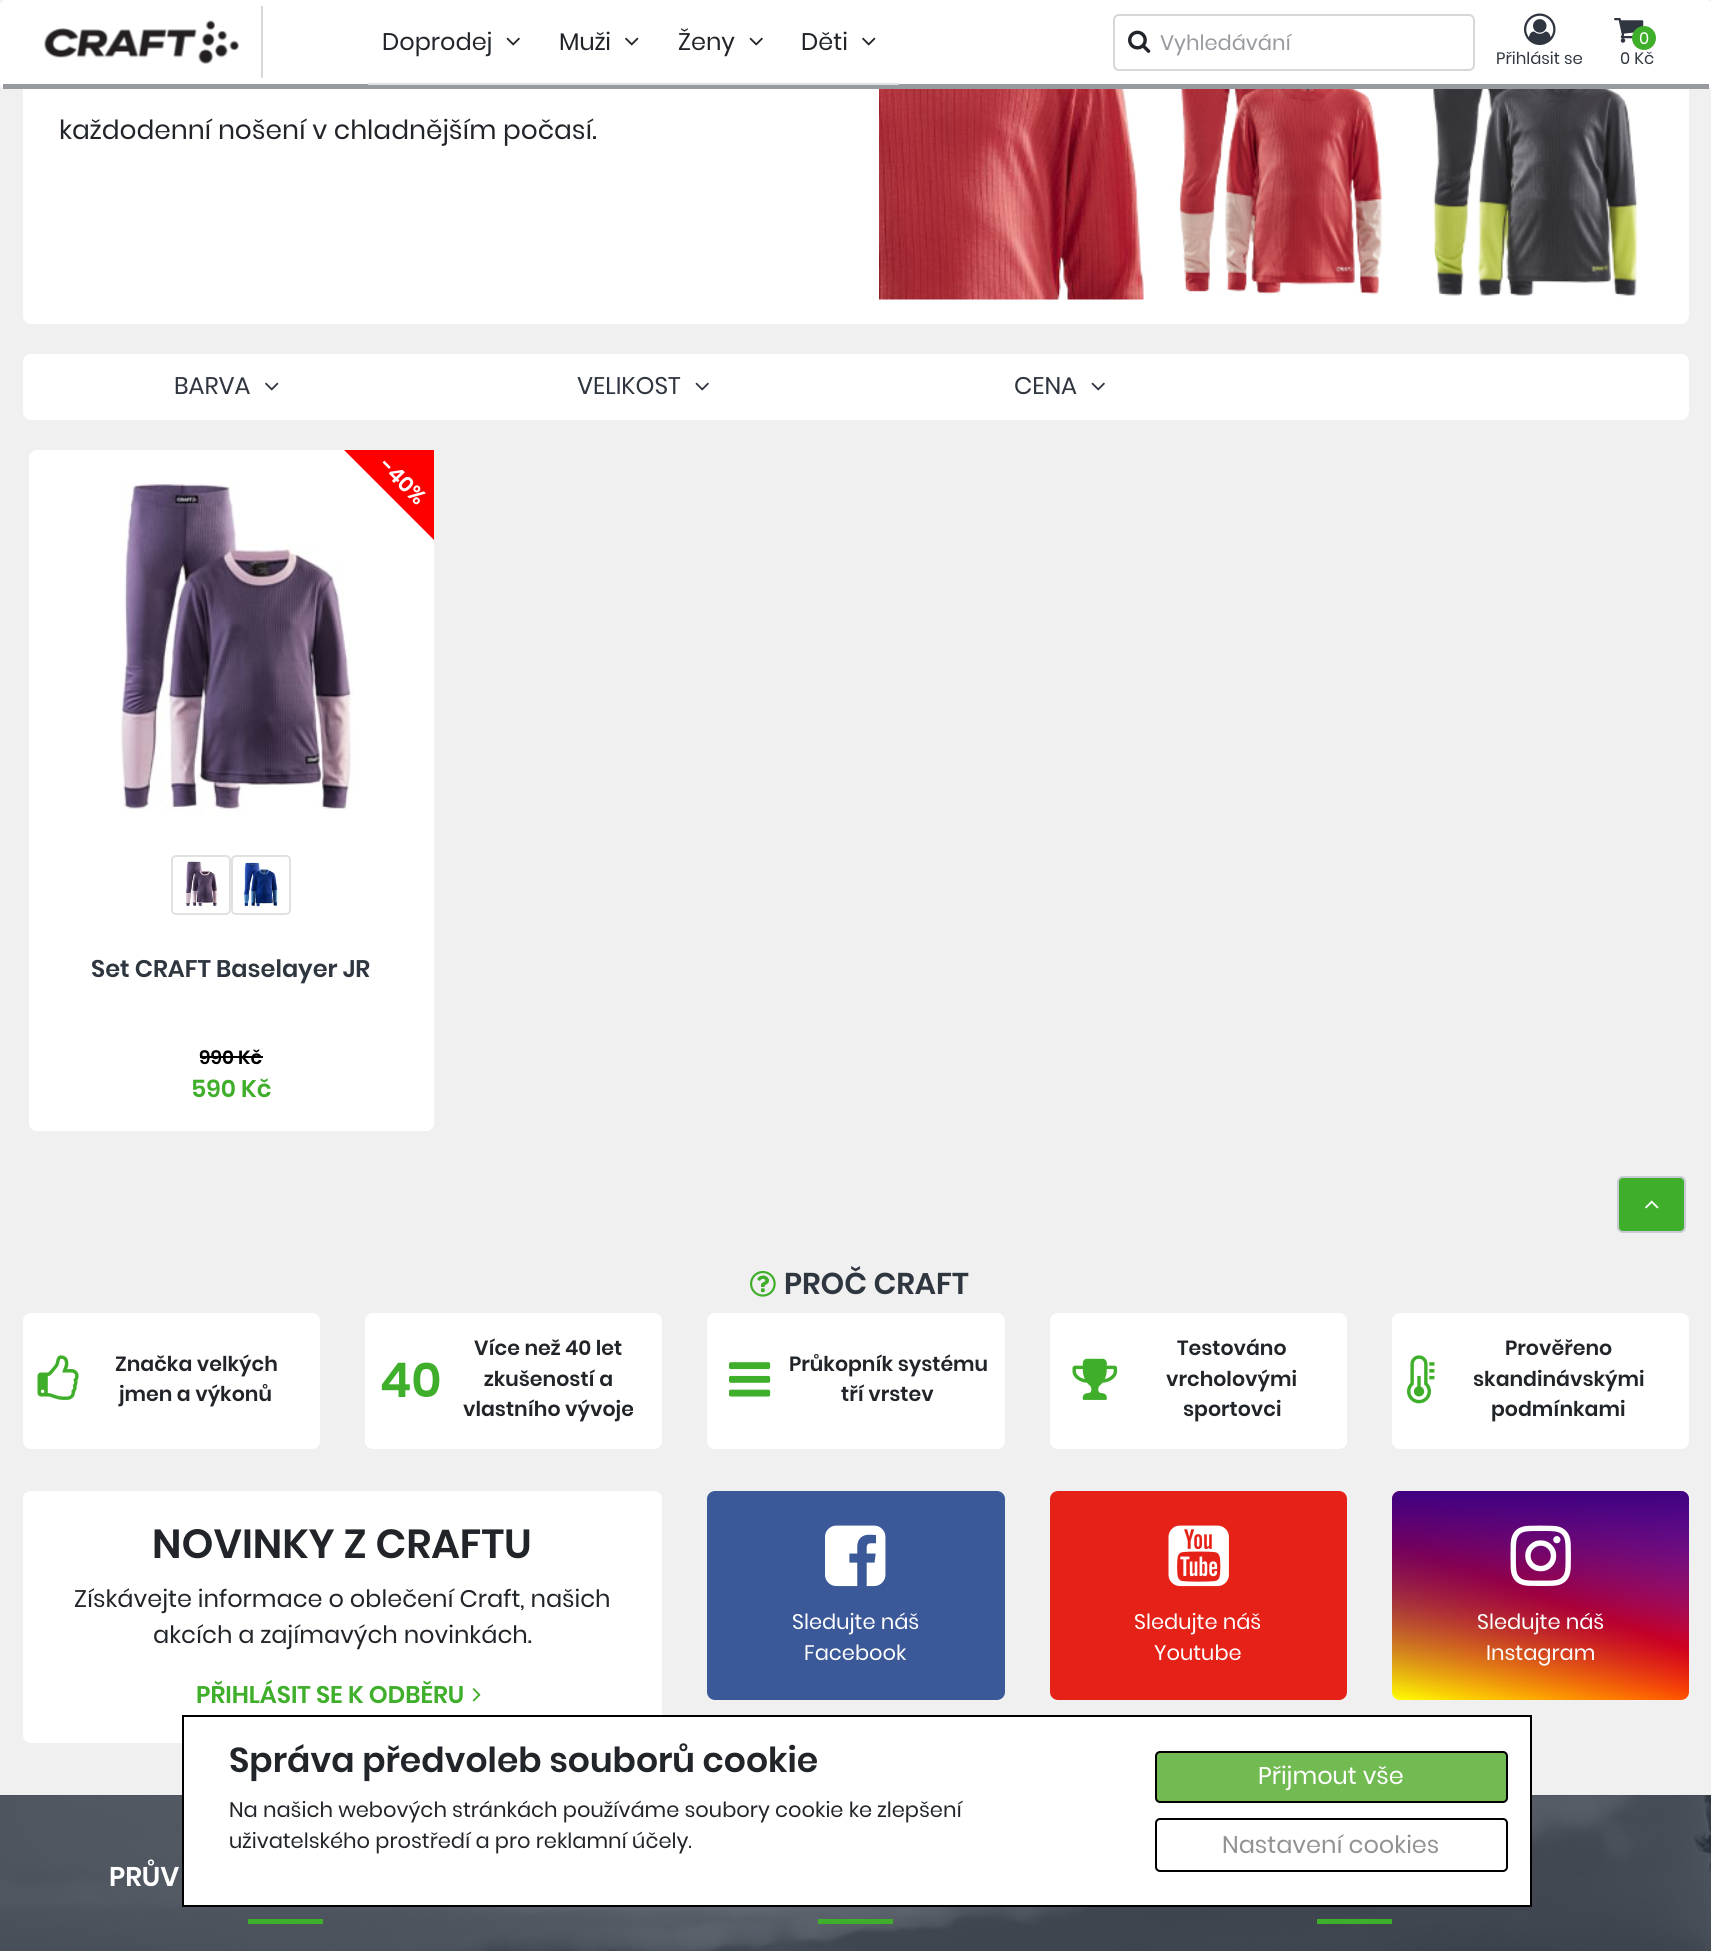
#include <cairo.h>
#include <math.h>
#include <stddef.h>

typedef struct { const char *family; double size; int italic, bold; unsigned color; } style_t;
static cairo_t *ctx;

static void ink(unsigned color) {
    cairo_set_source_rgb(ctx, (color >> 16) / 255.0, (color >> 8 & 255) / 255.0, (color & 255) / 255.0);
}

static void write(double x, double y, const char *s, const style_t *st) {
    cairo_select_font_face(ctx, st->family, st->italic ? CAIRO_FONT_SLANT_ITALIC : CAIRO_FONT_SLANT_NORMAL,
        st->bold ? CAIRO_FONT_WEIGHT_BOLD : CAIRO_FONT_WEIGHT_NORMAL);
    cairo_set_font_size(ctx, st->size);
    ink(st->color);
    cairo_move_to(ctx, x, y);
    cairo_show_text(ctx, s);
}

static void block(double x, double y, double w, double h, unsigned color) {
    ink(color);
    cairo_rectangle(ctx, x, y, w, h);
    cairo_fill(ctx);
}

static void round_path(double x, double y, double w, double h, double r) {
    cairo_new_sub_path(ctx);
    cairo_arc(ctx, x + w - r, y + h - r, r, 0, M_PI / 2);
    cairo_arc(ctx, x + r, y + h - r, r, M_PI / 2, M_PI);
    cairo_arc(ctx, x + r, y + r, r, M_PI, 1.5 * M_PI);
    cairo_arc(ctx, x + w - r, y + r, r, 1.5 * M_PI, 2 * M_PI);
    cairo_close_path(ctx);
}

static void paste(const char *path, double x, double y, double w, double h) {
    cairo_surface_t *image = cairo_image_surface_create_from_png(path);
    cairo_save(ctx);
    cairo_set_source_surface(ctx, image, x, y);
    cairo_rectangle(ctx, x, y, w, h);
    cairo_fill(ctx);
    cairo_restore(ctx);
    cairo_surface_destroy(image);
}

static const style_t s1 = {"Poppins", 24, 0, 0, 0x212529};
static const style_t s2 = {"Poppins", 21, 0, 0, 0x979a9f};
static const style_t s3 = {"Poppins", 16.5, 0, 0, 0x2f3640};
static const style_t s4 = {"Poppins", 16.5, 0, 0, 0xffffff};
static const style_t s5 = {"Poppins", 26.4, 0, 0, 0x212529};
static const style_t s6 = {"Poppins", 24, 0, 0, 0x2f3640};
static const style_t s7 = {"Poppins SemiBold", 21.5, 0, 0, 0xffffff};
static const style_t s8 = {"Poppins SemiBold", 24, 0, 0, 0x2f3640};
static const style_t s9 = {"Poppins SemiBold", 19, 0, 0, 0x000000};
static const style_t s10 = {"Poppins SemiBold", 24, 0, 0, 0x3fae2a};
static const style_t s11 = {"Poppins SemiBold", 30, 0, 0, 0x2f3640};
static const style_t s12 = {"Poppins SemiBold", 20.5, 0, 0, 0x212529};
static const style_t s13 = {"Poppins SemiBold", 48, 0, 0, 0x3fae2a};
static const style_t s14 = {"Poppins SemiBold", 40.5, 0, 0, 0x212529};
static const style_t s15 = {"Poppins", 21, 0, 0, 0xffffff};
static const style_t s16 = {"Poppins SemiBold", 27, 0, 0, 0xffffff};
static const style_t s17 = {"Poppins SemiBold", 34.5, 0, 0, 0x212529};
static const style_t s18 = {"Poppins", 21, 0, 0, 0x212529};
static const style_t s19 = {"Poppins", 24, 0, 0, 0xffffff};
static const style_t s20 = {"Poppins", 24, 0, 0, 0x929292};

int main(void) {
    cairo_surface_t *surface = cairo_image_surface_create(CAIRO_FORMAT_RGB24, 1711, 1951);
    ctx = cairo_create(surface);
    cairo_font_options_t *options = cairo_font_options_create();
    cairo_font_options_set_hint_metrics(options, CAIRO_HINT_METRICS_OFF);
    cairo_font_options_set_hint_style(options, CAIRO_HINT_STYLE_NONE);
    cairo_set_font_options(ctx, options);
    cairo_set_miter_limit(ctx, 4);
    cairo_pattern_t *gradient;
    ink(0xf0f0f0);
    cairo_paint(ctx);
    ink(0xffffff);
    round_path(23, -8, 1666, 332, 8);
    cairo_fill(ctx);
    round_path(0, 0, 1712, 89, 6);
    cairo_fill(ctx);
    block(3, 84, 1706, 5, 0x979a9f);
    paste("pic1.png", 44, 20, 195, 44);
    block(261, 6, 2, 72, 0xd7d7d7);
    block(368, 83, 531, 2, 0xdee2e6);
    write(382, 50, "Doprodej", &s1);
    paste("pic2.png", 506, 37, 14, 9);
    write(559, 50, "Muži", &s1);
    paste("pic3.png", 625, 37, 14, 9);
    write(678, 50, "Ženy", &s1);
    paste("pic2.png", 749, 37, 14, 9);
    write(801, 50, "Děti", &s1);
    paste("pic3.png", 862, 37, 14, 9);
    round_path(1114, 15, 360, 55, 5);
    ink(0xd7d7d7);
    cairo_stroke(ctx);
    paste("pic4.png", 1128, 30, 23, 23);
    write(1160, 50, "Vyhledávání", &s2);
    paste("pic5.png", 1524, 13, 32, 32);
    write(1496, 64, "Přihlásit se", &s3);
    paste("pic6.png", 1614, 18, 30, 25);
    ink(0x3fae2a);
    cairo_arc(ctx, 1644, 38, 12, 0, 2 * M_PI);
    cairo_fill(ctx);
    write(1639, 44, "0", &s4);
    write(1620, 64, "0 Kč", &s3);
    write(59, 139, "každodenní nošení v chladnějším počasí.", &s5);
    paste("pic7.png", 879, 89, 759, 211);
    ink(0xffffff);
    round_path(23, 354, 1666, 66, 8);
    cairo_fill(ctx);
    write(174, 394, "BARVA", &s6);
    paste("pic8.png", 265, 382, 14, 9);
    write(577, 394, "VELIKOST", &s6);
    paste("pic9.png", 695, 382, 14, 9);
    write(1014, 394, "CENA", &s6);
    paste("pic9.png", 1091, 382, 14, 9);
    ink(0xffffff);
    round_path(29, 450, 405, 681, 8);
    cairo_fill(ctx);
    paste("pic10.png", 120, 484, 234, 330);
    ink(0xff0000);
    cairo_new_path(ctx);
    cairo_move_to(ctx, 434, 450);
    cairo_line_to(ctx, 434, 540);
    cairo_line_to(ctx, 344, 450);
    cairo_close_path(ctx);
    cairo_fill(ctx);
    cairo_save(ctx);
    cairo_translate(ctx, 378, 467);
    cairo_rotate(ctx, 45 * M_PI / 180);
    write(0, 0, "-40%", &s7);
    cairo_restore(ctx);
    round_path(172, 856, 58, 58, 4);
    ink(0xe1e1e1);
    cairo_stroke(ctx);
    paste("pic11.png", 185, 859, 33, 49);
    round_path(232, 856, 58, 58, 4);
    cairo_stroke(ctx);
    paste("pic12.png", 243, 859, 37, 49);
    write(91, 977, "Set CRAFT Baselayer JR", &s8);
    write(199, 1064, "990 Kč", &s9);
    block(200, 1056, 63, 2, 0x000000);
    write(191, 1097, "590 Kč", &s10);
    round_path(1618, 1177, 67, 55, 5);
    cairo_fill_preserve(ctx);
    ink(0xc7ccd4);
    cairo_stroke(ctx);
    paste("pic13.png", 1645, 1200, 14, 9);
    paste("pic14.png", 750, 1270, 26, 27);
    write(784, 1294, "PROČ CRAFT", &s11);
    ink(0xffffff);
    round_path(23, 1313, 297, 136, 8);
    cairo_fill(ctx);
    paste("pic15.png", 37, 1355, 42, 45);
    write(115, 1371, "Značka velkých", &s12);
    write(119, 1401, "jmen a výkonů", &s12);
    ink(0xffffff);
    round_path(365, 1313, 297, 136, 8);
    cairo_fill(ctx);
    write(380, 1397, "40", &s13);
    write(474, 1355, "Více než 40 let", &s12);
    write(484, 1386, "zkušeností a", &s12);
    write(463, 1416, "vlastního vývoje", &s12);
    ink(0xffffff);
    round_path(707, 1313, 298, 136, 8);
    cairo_fill(ctx);
    paste("pic16.png", 729, 1362, 42, 35);
    write(789, 1371, "Průkopník systému", &s12);
    write(841, 1401, "tří vrstev", &s12);
    ink(0xffffff);
    round_path(1050, 1313, 297, 136, 8);
    cairo_fill(ctx);
    paste("pic17.png", 1072, 1358, 46, 42);
    write(1177, 1355, "Testováno", &s12);
    write(1166, 1386, "vrcholovými", &s12);
    write(1183, 1416, "sportovci", &s12);
    ink(0xffffff);
    round_path(1392, 1313, 297, 136, 8);
    cairo_fill(ctx);
    paste("pic18.png", 1407, 1355, 28, 49);
    write(1505, 1355, "Prověřeno", &s12);
    write(1473, 1386, "skandinávskými", &s12);
    write(1491, 1416, "podmínkami", &s12);
    ink(0xffffff);
    round_path(23, 1491, 639, 252, 8);
    cairo_fill(ctx);
    write(152, 1558, "NOVINKY Z CRAFTU", &s14);
    write(74, 1607, "Získávejte informace o oblečení Craft, našich", &s1);
    write(153, 1643, "akcích a zajímavých novinkách.", &s1);
    write(196, 1703, "PŘIHLÁSIT SE K ODBĚRU", &s10);
    paste("pic19.png", 472, 1688, 9, 14);
    ink(0x3b5998);
    round_path(707, 1491, 298, 209, 8);
    cairo_fill(ctx);
    paste("pic20.png", 825, 1525, 61, 62);
    write(792, 1629, "Sledujte náš", &s15);
    write(804, 1660, "Facebook", &s15);
    ink(0xe62117);
    round_path(1050, 1491, 297, 209, 8);
    cairo_fill(ctx);
    paste("pic21.png", 1168, 1525, 61, 62);
    write(1134, 1629, "Sledujte náš", &s15);
    write(1154, 1660, "Youtube", &s15);
    gradient = cairo_pattern_create_linear(1591, 1455, 1490, 1735);
    cairo_pattern_add_color_stop_rgba(gradient, 0, 0.816, 0.278, 0.82, 1);
    cairo_pattern_add_color_stop_rgba(gradient, 0.5, 1, 0, 0, 1);
    cairo_pattern_add_color_stop_rgba(gradient, 1, 1, 1, 0, 1);
    cairo_set_source(ctx, gradient);
    cairo_pattern_destroy(gradient);
    round_path(1392, 1491, 297, 209, 8);
    cairo_fill(ctx);
    gradient = cairo_pattern_create_linear(1541, 1491, 1541, 1700);
    cairo_pattern_add_color_stop_rgba(gradient, 0, 0.251, 0, 0.502, 1);
    cairo_pattern_add_color_stop_rgba(gradient, 1, 0.251, 0, 0.502, 0);
    cairo_set_source(ctx, gradient);
    cairo_pattern_destroy(gradient);
    round_path(1392, 1491, 297, 209, 8);
    cairo_fill(ctx);
    paste("pic22.png", 1510, 1525, 61, 61);
    write(1477, 1629, "Sledujte náš", &s15);
    write(1486, 1660, "Instagram", &s15);
    paste("pic23.png", 0, 1795, 1711, 156);
    write(109, 1886, "PRŮV", &s16);
    block(248, 1919, 75, 5, 0x3fae2a);
    block(818, 1919, 75, 5, 0x3fae2a);
    block(1317, 1919, 75, 5, 0x3fae2a);
    ink(0xffffff);
    cairo_rectangle(ctx, 183, 1716, 1348, 190);
    cairo_fill_preserve(ctx);
    ink(0x000000);
    cairo_stroke(ctx);
    write(229, 1772, "Správa předvoleb souborů cookie", &s17);
    write(229, 1817, "Na našich webových stránkách používáme soubory cookie ke zlepšení", &s18);
    write(229, 1848, "uživatelského prostředí a pro reklamní účely.", &s18);
    ink(0x72bb53);
    round_path(1156, 1752, 351, 50, 4);
    cairo_fill_preserve(ctx);
    ink(0x000000);
    cairo_stroke(ctx);
    write(1258, 1784, "Přijmout vše", &s19);
    round_path(1156, 1819, 351, 52, 4);
    ink(0x000000);
    cairo_stroke(ctx);
    write(1222, 1853, "Nastavení cookies", &s20);
    cairo_surface_write_to_png(surface, "screenshot.png");
    cairo_font_options_destroy(options);
    cairo_destroy(ctx);
    cairo_surface_destroy(surface);
    return 0;
}
